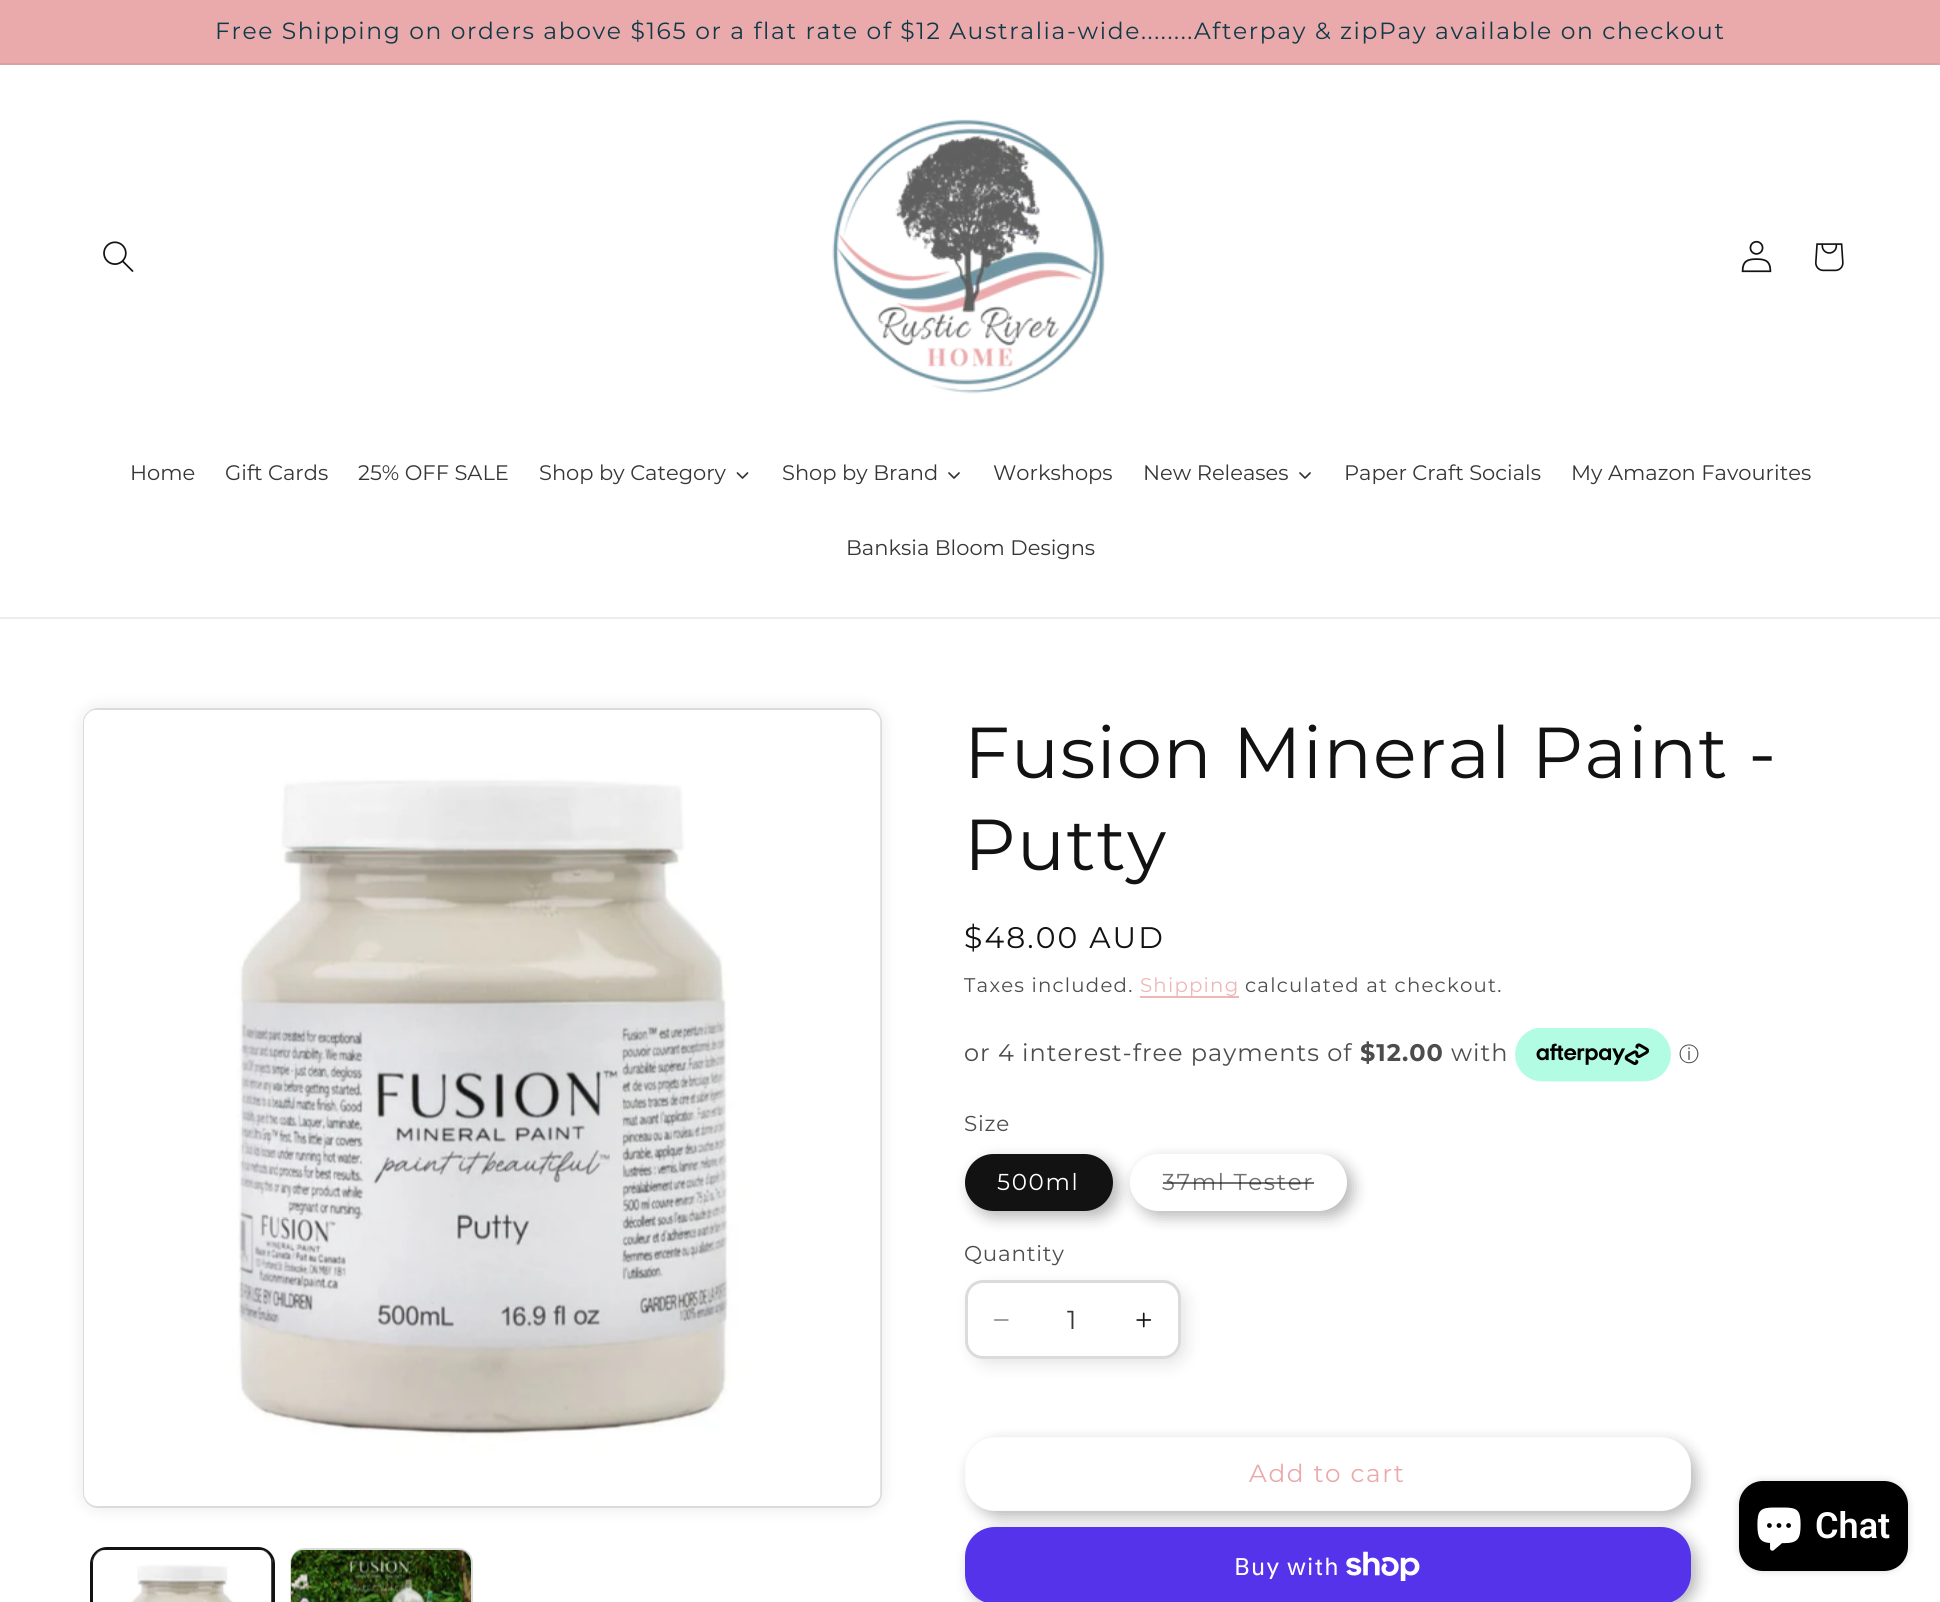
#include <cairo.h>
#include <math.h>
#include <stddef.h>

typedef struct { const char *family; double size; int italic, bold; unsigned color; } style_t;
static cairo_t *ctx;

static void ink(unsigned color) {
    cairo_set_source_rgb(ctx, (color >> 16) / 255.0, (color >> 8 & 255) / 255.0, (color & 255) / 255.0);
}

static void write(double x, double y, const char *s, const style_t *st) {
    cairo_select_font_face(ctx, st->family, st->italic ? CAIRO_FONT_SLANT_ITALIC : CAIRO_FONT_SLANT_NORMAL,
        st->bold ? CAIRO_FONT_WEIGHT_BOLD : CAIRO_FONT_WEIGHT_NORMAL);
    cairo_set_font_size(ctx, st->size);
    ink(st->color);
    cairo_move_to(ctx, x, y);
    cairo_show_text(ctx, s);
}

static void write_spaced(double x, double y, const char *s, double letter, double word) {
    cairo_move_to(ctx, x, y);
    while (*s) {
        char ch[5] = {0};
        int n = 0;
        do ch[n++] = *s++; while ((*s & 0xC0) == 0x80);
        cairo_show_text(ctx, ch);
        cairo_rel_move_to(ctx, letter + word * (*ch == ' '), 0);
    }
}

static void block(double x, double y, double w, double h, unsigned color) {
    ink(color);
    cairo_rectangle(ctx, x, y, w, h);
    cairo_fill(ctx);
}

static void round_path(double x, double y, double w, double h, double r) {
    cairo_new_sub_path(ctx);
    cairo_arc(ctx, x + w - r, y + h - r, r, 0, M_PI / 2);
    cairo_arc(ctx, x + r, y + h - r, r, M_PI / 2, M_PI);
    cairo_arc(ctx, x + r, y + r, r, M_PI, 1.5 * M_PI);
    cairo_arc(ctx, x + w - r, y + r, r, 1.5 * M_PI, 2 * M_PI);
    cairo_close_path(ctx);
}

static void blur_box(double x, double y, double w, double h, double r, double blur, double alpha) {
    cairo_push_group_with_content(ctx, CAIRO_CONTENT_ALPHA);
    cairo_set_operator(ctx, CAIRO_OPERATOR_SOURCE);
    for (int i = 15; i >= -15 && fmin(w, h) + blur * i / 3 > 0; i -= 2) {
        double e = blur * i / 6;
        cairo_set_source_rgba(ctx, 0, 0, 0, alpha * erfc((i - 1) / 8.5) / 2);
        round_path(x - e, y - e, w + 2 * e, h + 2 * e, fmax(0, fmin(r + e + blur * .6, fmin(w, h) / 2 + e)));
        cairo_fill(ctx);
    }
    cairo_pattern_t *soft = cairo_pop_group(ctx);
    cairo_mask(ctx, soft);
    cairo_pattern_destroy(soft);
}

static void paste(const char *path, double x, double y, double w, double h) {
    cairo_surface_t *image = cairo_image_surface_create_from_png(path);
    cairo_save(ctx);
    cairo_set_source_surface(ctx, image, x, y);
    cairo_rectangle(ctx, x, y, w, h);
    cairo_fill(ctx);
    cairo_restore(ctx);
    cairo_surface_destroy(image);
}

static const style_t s1 = {"Montserrat", 21, 0, 0, 0x363636};
static const style_t s2 = {"WenQuanYi Zen Hei Medium", 20, 0, 0, 0x4d4d4d};
static const style_t s3 = {"Montserrat", 26, 0, 0, 0x363636};
static const style_t s4 = {"Roboto SemiBold", 36, 0, 0, 0xffffff};

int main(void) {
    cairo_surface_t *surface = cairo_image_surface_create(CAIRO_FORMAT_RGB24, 1940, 1602);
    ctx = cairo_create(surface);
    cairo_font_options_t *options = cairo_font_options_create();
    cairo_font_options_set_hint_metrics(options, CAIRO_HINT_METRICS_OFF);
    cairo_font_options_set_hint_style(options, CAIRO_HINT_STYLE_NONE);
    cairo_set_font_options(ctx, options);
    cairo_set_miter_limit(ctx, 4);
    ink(0xffffff);
    cairo_paint(ctx);
    block(0, 0, 1940, 63, 0xeaaaac);
    block(0, 63, 1940, 2, 0xd9a1a4);
    cairo_select_font_face(ctx, "Montserrat", CAIRO_FONT_SLANT_NORMAL, CAIRO_FONT_WEIGHT_NORMAL);
    cairo_set_font_size(ctx, 23.4);
    ink(0x103948);
    write_spaced(215, 39, "Free Shipping on orders above $165 or a flat rate of $12 Australia-wide........Afterpay & zipPay available on checkout", 1.65, 0);
    block(0, 617, 1940, 2, 0xececec);
    paste("pic1.png", 103, 241, 31, 31);
    paste("pic2.png", 832, 119, 273, 275);
    paste("pic3.png", 1741, 240, 31, 33);
    paste("pic4.png", 1815, 243, 29, 29);
    write(130, 480, "Home", &s1);
    write(225, 480, "Gift Cards", &s1);
    write(358, 480, "25% OFF SALE", &s1);
    write(539, 480, "Shop by Category", &s1);
    paste("pic5.png", 736, 472, 13, 7);
    write(782, 480, "Shop by Brand", &s1);
    paste("pic6.png", 948, 472, 12, 7);
    write(993, 480, "Workshops", &s1);
    write(1143, 480, "New Releases", &s1);
    paste("pic6.png", 1299, 472, 12, 7);
    write(1344, 480, "Paper Craft Socials", &s1);
    write(1571, 480, "My Amazon Favourites", &s1);
    write(846, 555, "Banksia Bloom Designs", &s1);
    ink(0x121212);
    blur_box(83, 708, 799, 800, 15, 7.5, 0.1);
    ink(0xffffff);
    round_path(83, 708, 799, 800, 15);
    cairo_fill(ctx);
    round_path(84, 709, 797, 798, 14);
    cairo_set_source_rgba(ctx, 0.071, 0.071, 0.071, 0.15);
    cairo_stroke(ctx);
    paste("pic7.png", 84, 710, 797, 796);
    round_path(91, 1548, 183, 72, 16);
    ink(0x121212);
    cairo_stroke(ctx);
    round_path(93, 1549, 179, 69, 14);
    cairo_stroke(ctx);
    paste("pic8.png", 93, 1550, 179, 52);
    round_path(291, 1549, 181, 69, 14);
    ink(0xdbdbdb);
    cairo_stroke(ctx);
    paste("pic9.png", 291, 1550, 180, 52);
    cairo_set_font_size(ctx, 72);
    ink(0x121212);
    write_spaced(964, 778, "Fusion Mineral Paint -", 1.1, 0);
    write_spaced(964, 870, "Putty", 1.1, 0);
    cairo_set_font_size(ctx, 29.75);
    write_spaced(964, 948, "$48.00 AUD", 2.1, 0);
    cairo_set_font_size(ctx, 19.75);
    ink(0x4d4d4d);
    write_spaced(964, 992, "Taxes included.", 1.2, 0);
    ink(0xedb7b8);
    write_spaced(1140, 992, "Shipping", 1.2, 0);
    block(1140, 996, 99, 2, 0xedb7b8);
    ink(0x4d4d4d);
    write_spaced(1245, 992, "calculated at checkout.", 1.2, 0);
    cairo_set_font_size(ctx, 24);
    write_spaced(964, 1061, "or 4 interest-free payments of", 1, 0);
    cairo_select_font_face(ctx, "Montserrat", CAIRO_FONT_SLANT_NORMAL, CAIRO_FONT_WEIGHT_BOLD);
    write_spaced(1360, 1061, "$12.00", 1, 0);
    cairo_select_font_face(ctx, "Montserrat", CAIRO_FONT_SLANT_NORMAL, CAIRO_FONT_WEIGHT_NORMAL);
    write_spaced(1451, 1061, "with", 1, 0);
    paste("pic10.png", 1515, 1028, 156, 54);
    write(1679, 1061, "ⓘ", &s2);
    cairo_select_font_face(ctx, "Montserrat", CAIRO_FONT_SLANT_NORMAL, CAIRO_FONT_WEIGHT_NORMAL);
    cairo_set_font_size(ctx, 21.5);
    write_spaced(964, 1131, "Size", 0.75, 0);
    ink(0x121212);
    blur_box(971, 1160, 148, 57, 28.5, 7.5, 0.3);
    blur_box(1136, 1160, 217, 57, 28.5, 7.5, 0.3);
    ink(0x121212);
    round_path(965, 1154, 148, 57, 28.5);
    cairo_fill(ctx);
    cairo_set_font_size(ctx, 23);
    ink(0xffffff);
    write_spaced(997, 1190, "500ml", 1.65, 0);
    round_path(1130, 1154, 217, 57, 28.5);
    cairo_fill(ctx);
    ink(0x717171);
    write_spaced(1162, 1190, "37ml Tester", 1.65, 0);
    cairo_set_source_rgba(ctx, 0.071, 0.071, 0.071, 0.6);
    cairo_rectangle(ctx, 1163, 1182, 151, 2);
    cairo_fill(ctx);
    ink(0x121212);
    blur_box(971, 1286, 216, 79, 18, 7.5, 0.1);
    cairo_set_font_size(ctx, 21.5);
    ink(0x4d4d4d);
    write_spaced(964, 1261, "Quantity", 0.75, 0);
    ink(0xffffff);
    round_path(965, 1280, 216, 79, 18);
    cairo_fill(ctx);
    paste("pic11.png", 994, 1319, 15, 2);
    paste("pic12.png", 1136, 1312, 16, 16);
    round_path(966.5, 1281.5, 213, 76, 16.5);
    cairo_set_source_rgba(ctx, 0.071, 0.071, 0.071, 0.15);
    cairo_set_line_width(ctx, 3);
    cairo_stroke(ctx);
    write(1067, 1329, "1", &s3);
    ink(0x121212);
    blur_box(971, 1443, 726, 74, 30, 7.5, 0.3);
    ink(0xffffff);
    round_path(965, 1437, 726, 74, 30);
    cairo_fill(ctx);
    ink(0x121212);
    blur_box(971, 1533, 726, 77, 30, 7.5, 0.3);
    round_path(965.2, 1437.2, 725.6, 73.6, 29.8);
    cairo_set_source_rgba(ctx, 0.918, 0.667, 0.675, 0.15);
    cairo_set_line_width(ctx, 0.4);
    cairo_stroke(ctx);
    cairo_set_font_size(ctx, 24.75);
    ink(0xeaaaac);
    write_spaced(1249, 1482, "Add to cart", 1.65, 0);
    ink(0x5433eb);
    round_path(965, 1527, 726, 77, 30);
    cairo_fill(ctx);
    cairo_select_font_face(ctx, "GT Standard", CAIRO_FONT_SLANT_NORMAL, CAIRO_FONT_WEIGHT_NORMAL);
    cairo_set_font_size(ctx, 24);
    ink(0xffffff);
    write_spaced(1234, 1575, "Buy with", 1, 0);
    paste("pic13.png", 1346, 1551, 74, 30);
    ink(0x000000);
    blur_box(1739, 1481, 169, 90, 24, 4, 0.15);
    ink(0x000000);
    round_path(1739, 1481, 169, 90, 24);
    cairo_fill(ctx);
    paste("pic14.png", 1757, 1507, 44, 44);
    write(1815, 1538, "Chat", &s4);
    cairo_surface_write_to_png(surface, "screenshot.png");
    cairo_font_options_destroy(options);
    cairo_destroy(ctx);
    cairo_surface_destroy(surface);
    return 0;
}
